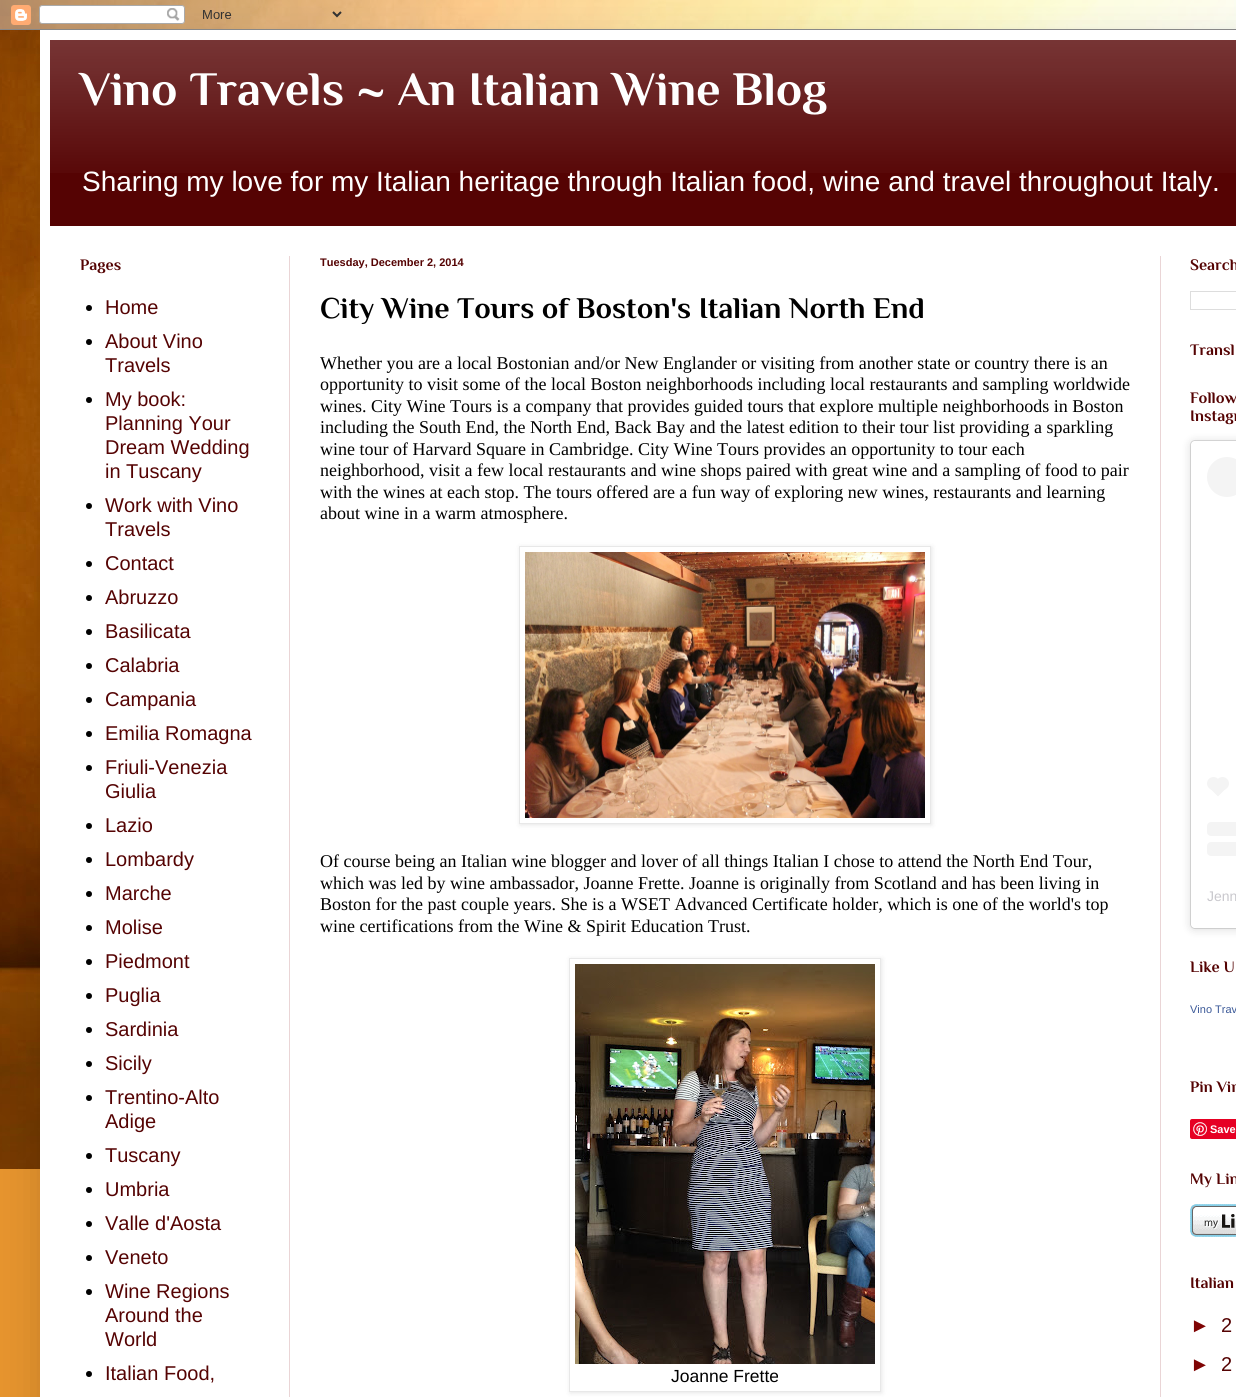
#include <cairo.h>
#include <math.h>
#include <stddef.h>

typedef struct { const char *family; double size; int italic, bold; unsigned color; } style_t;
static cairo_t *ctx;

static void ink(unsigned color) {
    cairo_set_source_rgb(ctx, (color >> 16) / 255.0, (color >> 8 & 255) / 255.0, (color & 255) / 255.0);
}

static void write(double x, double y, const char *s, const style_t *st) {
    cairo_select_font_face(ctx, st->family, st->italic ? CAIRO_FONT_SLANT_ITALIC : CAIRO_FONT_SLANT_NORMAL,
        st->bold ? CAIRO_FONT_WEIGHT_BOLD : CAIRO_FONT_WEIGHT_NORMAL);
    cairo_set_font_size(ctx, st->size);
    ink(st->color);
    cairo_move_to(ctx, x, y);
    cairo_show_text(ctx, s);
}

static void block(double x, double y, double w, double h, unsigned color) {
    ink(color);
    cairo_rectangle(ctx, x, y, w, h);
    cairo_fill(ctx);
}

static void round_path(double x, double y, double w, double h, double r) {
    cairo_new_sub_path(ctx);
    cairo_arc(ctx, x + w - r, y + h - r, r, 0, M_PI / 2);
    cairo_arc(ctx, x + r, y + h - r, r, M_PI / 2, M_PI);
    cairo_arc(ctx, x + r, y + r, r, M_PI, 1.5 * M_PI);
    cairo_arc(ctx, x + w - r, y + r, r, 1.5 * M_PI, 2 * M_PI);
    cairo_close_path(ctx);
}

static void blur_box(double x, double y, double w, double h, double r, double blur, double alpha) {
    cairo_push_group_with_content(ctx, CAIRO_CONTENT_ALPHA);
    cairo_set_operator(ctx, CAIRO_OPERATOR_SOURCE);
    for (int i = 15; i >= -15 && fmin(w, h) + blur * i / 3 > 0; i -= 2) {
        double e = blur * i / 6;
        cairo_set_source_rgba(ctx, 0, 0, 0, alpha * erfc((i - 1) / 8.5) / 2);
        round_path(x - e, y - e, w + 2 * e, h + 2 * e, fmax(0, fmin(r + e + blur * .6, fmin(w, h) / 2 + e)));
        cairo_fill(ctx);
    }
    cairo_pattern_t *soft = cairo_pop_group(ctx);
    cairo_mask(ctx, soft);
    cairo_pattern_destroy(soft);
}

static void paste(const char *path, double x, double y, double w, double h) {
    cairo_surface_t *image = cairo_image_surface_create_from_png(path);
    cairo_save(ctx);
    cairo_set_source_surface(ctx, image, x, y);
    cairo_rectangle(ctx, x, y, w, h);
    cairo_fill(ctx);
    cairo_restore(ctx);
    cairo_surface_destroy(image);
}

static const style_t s1 = {"Philosopher", 48, 0, 1, 0xffffff};
static const style_t s2 = {"Liberation Sans", 28, 0, 0, 0xffffff};
static const style_t s3 = {"Philosopher", 16, 0, 1, 0x550303};
static const style_t s4 = {"Liberation Sans", 20, 0, 0, 0x550303};
static const style_t s5 = {"Liberation Sans", 11, 0, 1, 0x550303};
static const style_t s6 = {"Philosopher", 30, 0, 1, 0x000000};
static const style_t s7 = {"Liberation Serif", 18, 0, 0, 0x000000};
static const style_t s8 = {"Liberation Sans", 17.5, 0, 0, 0x000000};
static const style_t s9 = {"Liberation Sans", 14, 0, 0, 0xc9c8cd};
static const style_t s10 = {"Liberation Sans", 11, 0, 0, 0x3b5998};
static const style_t s11 = {"Liberation Sans", 11, 0, 1, 0xffffff};
static const style_t s12 = {"Liberation Sans", 20, 0, 0, 0x7f0404};

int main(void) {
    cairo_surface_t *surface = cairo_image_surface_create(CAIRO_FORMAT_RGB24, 1236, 1397);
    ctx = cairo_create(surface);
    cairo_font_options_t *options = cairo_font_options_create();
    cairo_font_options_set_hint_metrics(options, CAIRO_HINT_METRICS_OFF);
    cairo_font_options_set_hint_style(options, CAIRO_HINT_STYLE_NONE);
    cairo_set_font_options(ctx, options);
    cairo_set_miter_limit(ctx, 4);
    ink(0xe6942e);
    cairo_paint(ctx);
    paste("pic1.png", 0, 0, 1236, 1169);
    ink(0x000000);
    blur_box(40, 30, 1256, 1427, 0, 20, 0.15);
    paste("pic2.png", 0, 0, 1236, 30);
    block(40, 30, 1196, 1367, 0xffffff);
    block(50, 40, 1186, 186, 0x550303);
    paste("pic3.png", 50, 40, 1186, 133);
    write(80, 105, "Vino Travels ~ An Italian Wine Blog", &s1);
    write(82, 191, "Sharing my love for my Italian heritage through Italian food, wine and travel throughout Italy.", &s2);
    block(289, 256, 1, 1141, 0xead5d6);
    block(1160, 256, 1, 1141, 0xead5d6);
    write(80, 270, "Pages", &s3);
    ink(0x000000);
    cairo_new_path(ctx);
    cairo_arc(ctx, 89, 308, 3, 0, 2 * M_PI);
    cairo_fill(ctx);
    write(105, 314, "Home", &s4);
    ink(0x000000);
    cairo_new_path(ctx);
    cairo_arc(ctx, 89, 342, 3, 0, 2 * M_PI);
    cairo_fill(ctx);
    write(105, 348, "About Vino", &s4);
    write(105, 372, "Travels", &s4);
    ink(0x000000);
    cairo_new_path(ctx);
    cairo_arc(ctx, 89, 400, 3, 0, 2 * M_PI);
    cairo_fill(ctx);
    write(105, 406, "My book:", &s4);
    write(105, 430, "Planning Your", &s4);
    write(105, 454, "Dream Wedding", &s4);
    write(105, 478, "in Tuscany", &s4);
    ink(0x000000);
    cairo_new_path(ctx);
    cairo_arc(ctx, 89, 506, 3, 0, 2 * M_PI);
    cairo_fill(ctx);
    write(105, 512, "Work with Vino", &s4);
    write(105, 536, "Travels", &s4);
    ink(0x000000);
    cairo_new_path(ctx);
    cairo_arc(ctx, 89, 564, 3, 0, 2 * M_PI);
    cairo_fill(ctx);
    write(105, 570, "Contact", &s4);
    ink(0x000000);
    cairo_new_path(ctx);
    cairo_arc(ctx, 89, 598, 3, 0, 2 * M_PI);
    cairo_fill(ctx);
    write(105, 604, "Abruzzo", &s4);
    ink(0x000000);
    cairo_new_path(ctx);
    cairo_arc(ctx, 89, 632, 3, 0, 2 * M_PI);
    cairo_fill(ctx);
    write(105, 638, "Basilicata", &s4);
    ink(0x000000);
    cairo_new_path(ctx);
    cairo_arc(ctx, 89, 666, 3, 0, 2 * M_PI);
    cairo_fill(ctx);
    write(105, 672, "Calabria", &s4);
    ink(0x000000);
    cairo_new_path(ctx);
    cairo_arc(ctx, 89, 700, 3, 0, 2 * M_PI);
    cairo_fill(ctx);
    write(105, 706, "Campania", &s4);
    ink(0x000000);
    cairo_new_path(ctx);
    cairo_arc(ctx, 89, 734, 3, 0, 2 * M_PI);
    cairo_fill(ctx);
    write(105, 740, "Emilia Romagna", &s4);
    ink(0x000000);
    cairo_new_path(ctx);
    cairo_arc(ctx, 89, 768, 3, 0, 2 * M_PI);
    cairo_fill(ctx);
    write(105, 774, "Friuli-Venezia", &s4);
    write(105, 798, "Giulia", &s4);
    ink(0x000000);
    cairo_new_path(ctx);
    cairo_arc(ctx, 89, 826, 3, 0, 2 * M_PI);
    cairo_fill(ctx);
    write(105, 832, "Lazio", &s4);
    ink(0x000000);
    cairo_new_path(ctx);
    cairo_arc(ctx, 89, 860, 3, 0, 2 * M_PI);
    cairo_fill(ctx);
    write(105, 866, "Lombardy", &s4);
    ink(0x000000);
    cairo_new_path(ctx);
    cairo_arc(ctx, 89, 894, 3, 0, 2 * M_PI);
    cairo_fill(ctx);
    write(105, 900, "Marche", &s4);
    ink(0x000000);
    cairo_new_path(ctx);
    cairo_arc(ctx, 89, 928, 3, 0, 2 * M_PI);
    cairo_fill(ctx);
    write(105, 934, "Molise", &s4);
    ink(0x000000);
    cairo_new_path(ctx);
    cairo_arc(ctx, 89, 962, 3, 0, 2 * M_PI);
    cairo_fill(ctx);
    write(105, 968, "Piedmont", &s4);
    ink(0x000000);
    cairo_new_path(ctx);
    cairo_arc(ctx, 89, 996, 3, 0, 2 * M_PI);
    cairo_fill(ctx);
    write(105, 1002, "Puglia", &s4);
    ink(0x000000);
    cairo_new_path(ctx);
    cairo_arc(ctx, 89, 1030, 3, 0, 2 * M_PI);
    cairo_fill(ctx);
    write(105, 1036, "Sardinia", &s4);
    ink(0x000000);
    cairo_new_path(ctx);
    cairo_arc(ctx, 89, 1064, 3, 0, 2 * M_PI);
    cairo_fill(ctx);
    write(105, 1070, "Sicily", &s4);
    ink(0x000000);
    cairo_new_path(ctx);
    cairo_arc(ctx, 89, 1098, 3, 0, 2 * M_PI);
    cairo_fill(ctx);
    write(105, 1104, "Trentino-Alto", &s4);
    write(105, 1128, "Adige", &s4);
    ink(0x000000);
    cairo_new_path(ctx);
    cairo_arc(ctx, 89, 1156, 3, 0, 2 * M_PI);
    cairo_fill(ctx);
    write(105, 1162, "Tuscany", &s4);
    ink(0x000000);
    cairo_new_path(ctx);
    cairo_arc(ctx, 89, 1190, 3, 0, 2 * M_PI);
    cairo_fill(ctx);
    write(105, 1196, "Umbria", &s4);
    ink(0x000000);
    cairo_new_path(ctx);
    cairo_arc(ctx, 89, 1224, 3, 0, 2 * M_PI);
    cairo_fill(ctx);
    write(105, 1230, "Valle d'Aosta", &s4);
    ink(0x000000);
    cairo_new_path(ctx);
    cairo_arc(ctx, 89, 1258, 3, 0, 2 * M_PI);
    cairo_fill(ctx);
    write(105, 1264, "Veneto", &s4);
    ink(0x000000);
    cairo_new_path(ctx);
    cairo_arc(ctx, 89, 1292, 3, 0, 2 * M_PI);
    cairo_fill(ctx);
    write(105, 1298, "Wine Regions", &s4);
    write(105, 1322, "Around the", &s4);
    write(105, 1346, "World", &s4);
    ink(0x000000);
    cairo_new_path(ctx);
    cairo_arc(ctx, 89, 1374, 3, 0, 2 * M_PI);
    cairo_fill(ctx);
    write(105, 1380, "Italian Food,", &s4);
    write(320, 266, "Tuesday, December 2, 2014", &s5);
    write(320, 318, "City Wine Tours of Boston's Italian North End", &s6);
    write(320, 369, "Whether you are a local Bostonian and/or New Englander or visiting from another state or country there is an", &s7);
    write(320, 390, "opportunity to visit some of the local Boston neighborhoods including local restaurants and sampling worldwide", &s7);
    write(320, 412, "wines. City Wine Tours is a company that provides guided tours that explore multiple neighborhoods in Boston", &s7);
    write(320, 433, "including the South End, the North End, Back Bay and the latest edition to their tour list providing a sparkling", &s7);
    write(320, 455, "wine tour of Harvard Square in Cambridge. City Wine Tours provides an opportunity to tour each", &s7);
    write(320, 476, "neighborhood, visit a few local restaurants and wine shops paired with great wine and a sampling of food to pair", &s7);
    write(320, 498, "with the wines at each stop. The tours offered are a fun way of exploring new wines, restaurants and learning", &s7);
    write(320, 519, "about wine in a warm atmosphere.", &s7);
    cairo_save(ctx);
    cairo_set_fill_rule(ctx, CAIRO_FILL_RULE_EVEN_ODD);
    cairo_new_path(ctx);
    cairo_move_to(ctx, 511, 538);
    cairo_line_to(ctx, 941, 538);
    cairo_line_to(ctx, 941, 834);
    cairo_line_to(ctx, 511, 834);
    cairo_close_path(ctx);
    cairo_move_to(ctx, 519, 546);
    cairo_line_to(ctx, 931, 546);
    cairo_line_to(ctx, 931, 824);
    cairo_line_to(ctx, 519, 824);
    cairo_close_path(ctx);
    cairo_clip(ctx);
    ink(0x000000);
    blur_box(520, 547, 412, 278, 0, 2.5, 0.1);
    cairo_restore(ctx);
    cairo_rectangle(ctx, 519.5, 546.5, 411, 277);
    ink(0xe8e8e8);
    cairo_set_line_width(ctx, 1);
    cairo_stroke(ctx);
    paste("pic4.png", 525, 552, 400, 266);
    write(320, 867, "Of course being an Italian wine blogger and lover of all things Italian I chose to attend the North End Tour,", &s7);
    write(320, 889, "which was led by wine ambassador, Joanne Frette. Joanne is originally from Scotland and has been living in", &s7);
    write(320, 910, "Boston for the past couple years. She is a WSET Advanced Certificate holder, which is one of the world's top", &s7);
    write(320, 932, "wine certifications from the Wine & Spirit Education Trust.", &s7);
    cairo_save(ctx);
    cairo_set_fill_rule(ctx, CAIRO_FILL_RULE_EVEN_ODD);
    cairo_new_path(ctx);
    cairo_move_to(ctx, 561, 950);
    cairo_line_to(ctx, 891, 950);
    cairo_line_to(ctx, 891, 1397);
    cairo_line_to(ctx, 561, 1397);
    cairo_close_path(ctx);
    cairo_move_to(ctx, 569, 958);
    cairo_line_to(ctx, 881, 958);
    cairo_line_to(ctx, 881, 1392);
    cairo_line_to(ctx, 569, 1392);
    cairo_close_path(ctx);
    cairo_clip(ctx);
    ink(0x000000);
    blur_box(570, 959, 312, 434, 0, 2.5, 0.1);
    cairo_restore(ctx);
    cairo_rectangle(ctx, 569.5, 958.5, 311, 433);
    ink(0xe8e8e8);
    cairo_stroke(ctx);
    paste("pic5.png", 575, 964, 300, 400);
    write(671, 1382, "Joanne Frette", &s8);
    write(1190, 270, "Search", &s3);
    cairo_rectangle(ctx, 1190.5, 291.5, 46, 18);
    ink(0xdddddd);
    cairo_stroke(ctx);
    write(1190, 355, "Transl", &s3);
    write(1190, 403, "Follow", &s3);
    write(1190, 421, "Instagr", &s3);
    ink(0x000000);
    blur_box(1191, 442, 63, 487, 3, 5, 0.15);
    blur_box(1191, 441, 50, 487, 3, 0.5, 0.5);
    ink(0xffffff);
    round_path(1191, 441, 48, 487, 3);
    cairo_fill(ctx);
    ink(0xf4f4f4);
    cairo_arc(ctx, 1227, 477, 20, 0, 2 * M_PI);
    cairo_fill(ctx);
    cairo_arc(ctx, 1213.5, 783.5, 6.5, 0, 2 * M_PI);
    cairo_fill(ctx);
    cairo_new_path(ctx);
    cairo_move_to(ctx, 1209, 787.5);
    cairo_line_to(ctx, 1218, 779);
    cairo_line_to(ctx, 1227, 787.5);
    cairo_line_to(ctx, 1218, 796.5);
    cairo_close_path(ctx);
    cairo_fill(ctx);
    cairo_arc(ctx, 1222.5, 783.5, 6.5, 0, 2 * M_PI);
    cairo_fill(ctx);
    round_path(1207, 822, 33, 14, 4);
    cairo_fill(ctx);
    round_path(1207, 842, 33, 14, 4);
    cairo_fill(ctx);
    write(1207, 901, "Jenn", &s9);
    write(1190, 972, "Like U", &s3);
    write(1190, 1013, "Vino Trav", &s10);
    write(1190, 1092, "Pin Vin", &s3);
    ink(0xe60023);
    round_path(1190, 1119, 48, 20, 2);
    cairo_fill(ctx);
    paste("pic6.png", 1193, 1122, 14, 14);
    write(1210, 1133, "Save", &s11);
    write(1190, 1184, "My Lin", &s3);
    paste("pic7.png", 1190, 1204, 46, 33);
    write(1190, 1288, "Italian", &s3);
    write(1190, 1332, "►", &s12);
    write(1221, 1332, "2", &s4);
    write(1190, 1371, "►", &s12);
    write(1221, 1371, "2", &s4);
    cairo_surface_write_to_png(surface, "screenshot.png");
    cairo_font_options_destroy(options);
    cairo_destroy(ctx);
    cairo_surface_destroy(surface);
    return 0;
}
